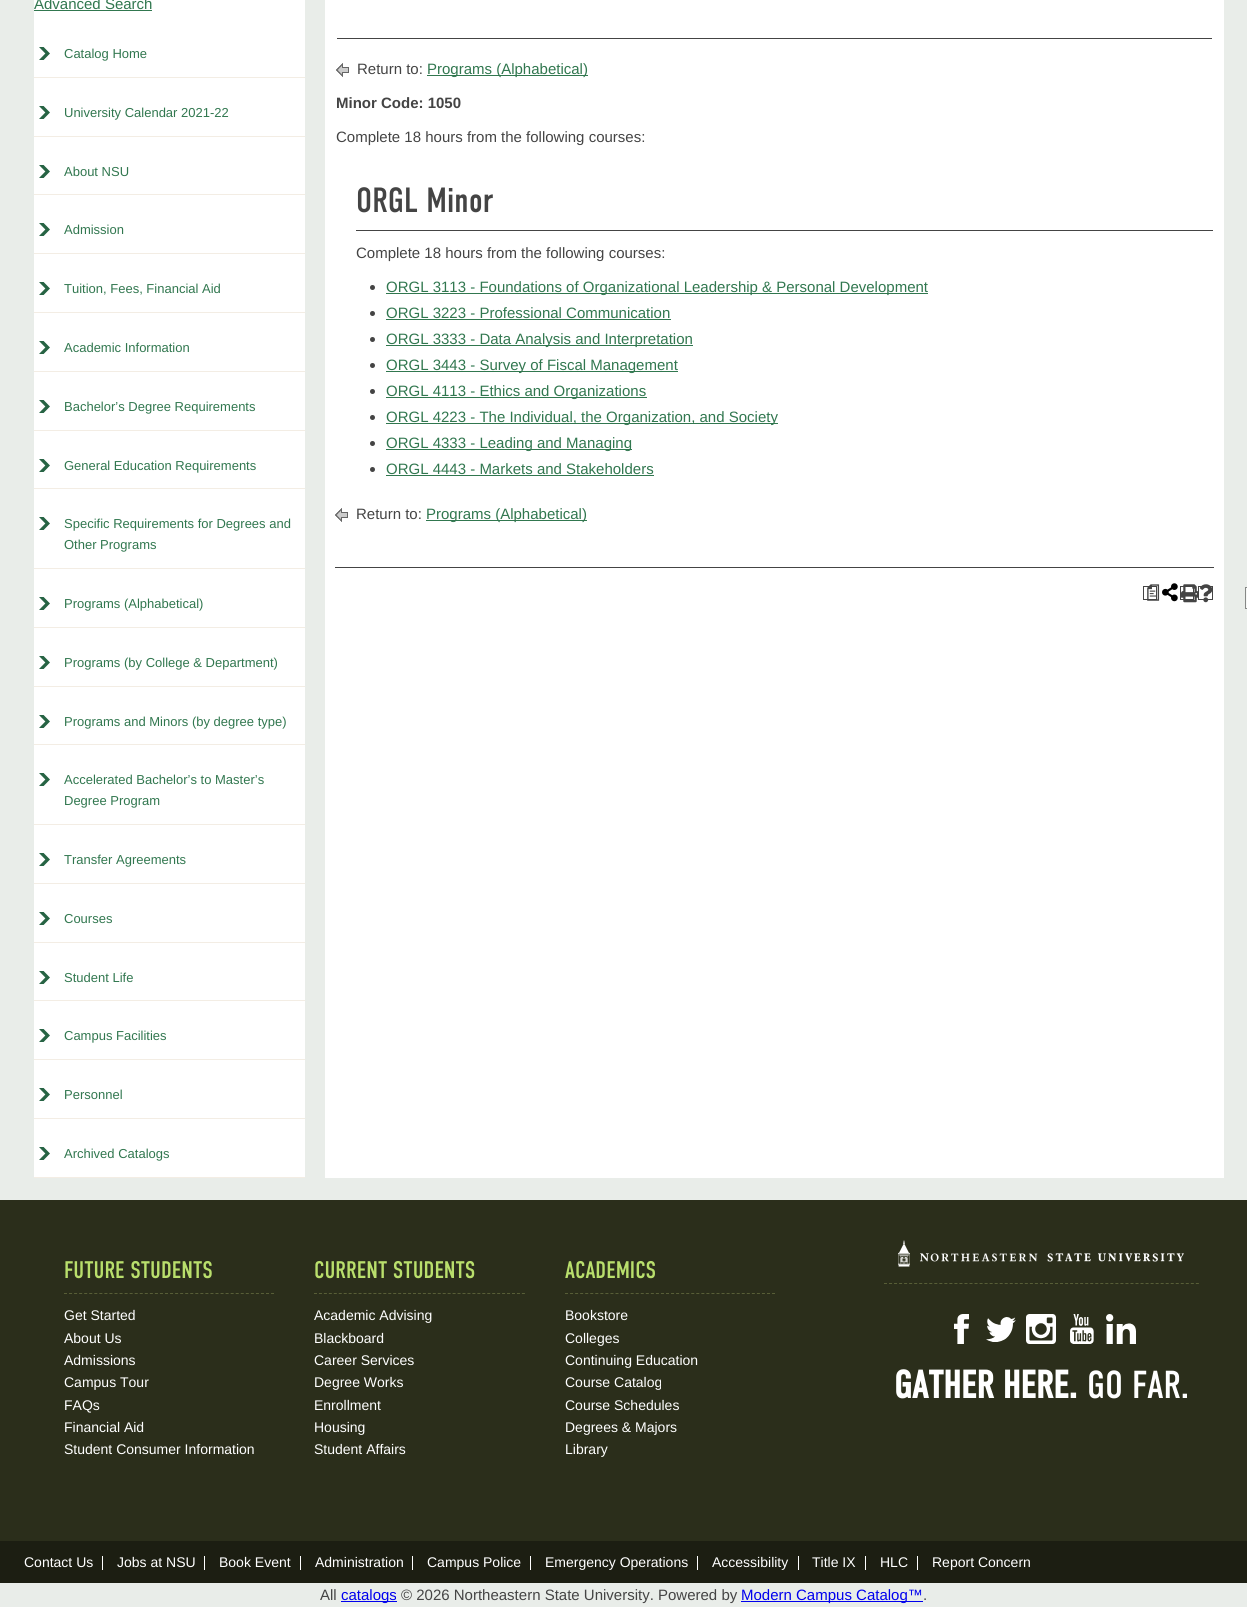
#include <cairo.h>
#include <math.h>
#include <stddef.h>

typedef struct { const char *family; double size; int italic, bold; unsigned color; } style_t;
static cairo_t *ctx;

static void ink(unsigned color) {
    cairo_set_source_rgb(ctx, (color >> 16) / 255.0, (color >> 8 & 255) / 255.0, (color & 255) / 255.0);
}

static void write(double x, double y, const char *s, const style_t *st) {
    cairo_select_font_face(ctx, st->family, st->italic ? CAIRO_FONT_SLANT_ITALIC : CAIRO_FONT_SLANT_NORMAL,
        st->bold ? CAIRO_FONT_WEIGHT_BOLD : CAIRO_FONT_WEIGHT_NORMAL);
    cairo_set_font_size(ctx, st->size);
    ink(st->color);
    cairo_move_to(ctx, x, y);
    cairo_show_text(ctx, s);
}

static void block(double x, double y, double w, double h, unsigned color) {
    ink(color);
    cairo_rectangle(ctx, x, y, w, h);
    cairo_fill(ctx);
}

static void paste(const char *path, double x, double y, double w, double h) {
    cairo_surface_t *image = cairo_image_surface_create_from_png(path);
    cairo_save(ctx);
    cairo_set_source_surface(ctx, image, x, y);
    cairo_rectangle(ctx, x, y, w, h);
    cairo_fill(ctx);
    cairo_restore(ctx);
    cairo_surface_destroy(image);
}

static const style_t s1 = {"Liberation Sans", 15, 0, 0, 0x31774f};
static const style_t s2 = {"Liberation Sans", 13, 0, 0, 0x31774f};
static const style_t s3 = {"Liberation Sans", 15, 0, 0, 0x444444};
static const style_t s4 = {"Liberation Sans", 15, 0, 1, 0x444444};
static const style_t s5 = {"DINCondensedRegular", 35, 0, 0, 0x444444};
static const style_t s6 = {"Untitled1 Medium", 18, 0, 0, 0x444444};
static const style_t s7 = {"DINCondensedRegular", 24, 0, 0, 0xb9df6c};
static const style_t s8 = {"Liberation Sans", 14, 0, 0, 0xffffff};
static const style_t s9 = {"DINCondensedRegular", 39, 0, 1, 0xffffff};
static const style_t s10 = {"DINCondensedRegular", 39, 0, 0, 0xffffff};
static const style_t s11 = {"Liberation Sans", 15, 0, 0, 0x0000ee};

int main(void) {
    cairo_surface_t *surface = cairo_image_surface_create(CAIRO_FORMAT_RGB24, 1247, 1607);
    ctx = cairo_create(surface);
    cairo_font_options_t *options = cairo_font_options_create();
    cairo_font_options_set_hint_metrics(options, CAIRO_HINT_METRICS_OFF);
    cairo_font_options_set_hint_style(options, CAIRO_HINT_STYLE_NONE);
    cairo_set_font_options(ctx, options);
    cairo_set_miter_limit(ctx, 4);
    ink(0xe9ede9);
    cairo_paint(ctx);
    block(34, 0, 271, 1177, 0xffffff);
    write(34, 9, "Advanced Search", &s1);
    block(34, 10, 118, 1, 0x31774f);
    paste("pic1.png", 39, 47, 11, 13);
    block(34, 77, 271, 1, 0xf3ede4);
    write(64, 58, "Catalog Home", &s2);
    paste("pic1.png", 39, 106, 11, 13);
    block(34, 136, 271, 1, 0xf3ede4);
    write(64, 117, "University Calendar 2021-22", &s2);
    paste("pic1.png", 39, 165, 11, 13);
    block(34, 194, 271, 1, 0xf3ede4);
    write(64, 176, "About NSU", &s2);
    paste("pic1.png", 39, 223, 11, 13);
    block(34, 253, 271, 1, 0xf3ede4);
    write(64, 234, "Admission", &s2);
    paste("pic1.png", 39, 282, 11, 13);
    block(34, 312, 271, 1, 0xf3ede4);
    write(64, 293, "Tuition, Fees, Financial Aid", &s2);
    paste("pic1.png", 39, 341, 11, 13);
    block(34, 371, 271, 1, 0xf3ede4);
    write(64, 352, "Academic Information", &s2);
    paste("pic1.png", 39, 400, 11, 13);
    block(34, 430, 271, 1, 0xf3ede4);
    write(64, 411, "Bachelor’s Degree Requirements", &s2);
    paste("pic1.png", 39, 459, 11, 13);
    block(34, 488, 271, 1, 0xf3ede4);
    write(64, 470, "General Education Requirements", &s2);
    paste("pic1.png", 39, 517, 11, 13);
    block(34, 568, 271, 1, 0xf3ede4);
    write(64, 528, "Specific Requirements for Degrees and", &s2);
    write(64, 549, "Other Programs", &s2);
    paste("pic1.png", 39, 597, 11, 13);
    block(34, 627, 271, 1, 0xf3ede4);
    write(64, 608, "Programs (Alphabetical)", &s2);
    paste("pic1.png", 39, 656, 11, 13);
    block(34, 686, 271, 1, 0xf3ede4);
    write(64, 667, "Programs (by College & Department)", &s2);
    paste("pic2.png", 39, 715, 11, 13);
    block(34, 744, 271, 1, 0xf3ede4);
    write(64, 726, "Programs and Minors (by degree type)", &s2);
    paste("pic1.png", 39, 773, 11, 13);
    block(34, 824, 271, 1, 0xf3ede4);
    write(64, 784, "Accelerated Bachelor’s to Master’s", &s2);
    write(64, 805, "Degree Program", &s2);
    paste("pic1.png", 39, 853, 11, 13);
    block(34, 883, 271, 1, 0xf3ede4);
    write(64, 864, "Transfer Agreements", &s2);
    paste("pic1.png", 39, 912, 11, 13);
    block(34, 942, 271, 1, 0xf3ede4);
    write(64, 923, "Courses", &s2);
    paste("pic3.png", 39, 971, 11, 13);
    block(34, 1000, 271, 1, 0xf3ede4);
    write(64, 982, "Student Life", &s2);
    paste("pic1.png", 39, 1029, 11, 13);
    block(34, 1059, 271, 1, 0xf3ede4);
    write(64, 1040, "Campus Facilities", &s2);
    paste("pic1.png", 39, 1088, 11, 13);
    block(34, 1118, 271, 1, 0xf3ede4);
    write(64, 1099, "Personnel", &s2);
    paste("pic1.png", 39, 1147, 11, 13);
    block(34, 1177, 271, 1, 0xf3ede4);
    write(64, 1158, "Archived Catalogs", &s2);
    block(325, 0, 899, 1178, 0xffffff);
    block(337, 38, 875, 1, 0x444444);
    paste("pic4.png", 336, 63, 13, 14);
    write(357, 74, "Return to:", &s3);
    block(427, 75, 161, 1, 0x31774f);
    write(427, 74, "Programs (Alphabetical)", &s1);
    write(336, 108, "Minor Code: 1050", &s4);
    write(336, 142, "Complete 18 hours from the following courses:", &s3);
    write(356, 212, "ORGL Minor", &s5);
    block(356, 230, 857, 1, 0x444444);
    write(356, 258, "Complete 18 hours from the following courses:", &s3);
    cairo_new_path(ctx);
    cairo_arc(ctx, 372.5, 287.5, 2.5, 0, 2 * M_PI);
    cairo_fill(ctx);
    block(386, 293, 542, 1, 0x31774f);
    write(386, 292, "ORGL 3113 - Foundations of Organizational Leadership & Personal Development", &s1);
    ink(0x444444);
    cairo_new_path(ctx);
    cairo_arc(ctx, 372.5, 313.5, 2.5, 0, 2 * M_PI);
    cairo_fill(ctx);
    write(386, 318, "ORGL 3223 - Professional Communication", &s1);
    block(386, 319, 285, 1, 0x31774f);
    ink(0x444444);
    cairo_new_path(ctx);
    cairo_arc(ctx, 372.5, 339.5, 2.5, 0, 2 * M_PI);
    cairo_fill(ctx);
    block(386, 345, 307, 1, 0x31774f);
    write(386, 344, "ORGL 3333 - Data Analysis and Interpretation", &s1);
    ink(0x444444);
    cairo_new_path(ctx);
    cairo_arc(ctx, 372.5, 365.5, 2.5, 0, 2 * M_PI);
    cairo_fill(ctx);
    block(386, 371, 292, 1, 0x31774f);
    write(386, 370, "ORGL 3443 - Survey of Fiscal Management", &s1);
    ink(0x444444);
    cairo_new_path(ctx);
    cairo_arc(ctx, 372.5, 391.5, 2.5, 0, 2 * M_PI);
    cairo_fill(ctx);
    block(386, 397, 261, 1, 0x31774f);
    write(386, 396, "ORGL 4113 - Ethics and Organizations", &s1);
    ink(0x444444);
    cairo_new_path(ctx);
    cairo_arc(ctx, 372.5, 417.5, 2.5, 0, 2 * M_PI);
    cairo_fill(ctx);
    block(386, 423, 392, 1, 0x31774f);
    write(386, 422, "ORGL 4223 - The Individual, the Organization, and Society", &s1);
    ink(0x444444);
    cairo_new_path(ctx);
    cairo_arc(ctx, 372.5, 443.5, 2.5, 0, 2 * M_PI);
    cairo_fill(ctx);
    block(386, 449, 246, 1, 0x31774f);
    write(386, 448, "ORGL 4333 - Leading and Managing", &s1);
    ink(0x444444);
    cairo_new_path(ctx);
    cairo_arc(ctx, 372.5, 469.5, 2.5, 0, 2 * M_PI);
    cairo_fill(ctx);
    write(386, 474, "ORGL 4443 - Markets and Stakeholders", &s1);
    block(386, 475, 268, 1, 0x31774f);
    paste("pic4.png", 335, 508, 13, 14);
    write(356, 519, "Return to:", &s3);
    block(426, 520, 161, 1, 0x31774f);
    write(426, 519, "Programs (Alphabetical)", &s1);
    block(335, 567, 879, 1, 0x444444);
    cairo_rectangle(ctx, 1143.5, 586.5, 13, 13);
    cairo_set_line_width(ctx, 1);
    cairo_stroke(ctx);
    write(1144, 598, "a", &s6);
    paste("pic5.png", 1162, 583, 16, 19);
    cairo_rectangle(ctx, 1180.5, 586.5, 13, 13);
    cairo_stroke(ctx);
    paste("pic6.png", 1181, 584, 17, 19);
    cairo_rectangle(ctx, 1198.5, 586.5, 14, 13);
    cairo_stroke(ctx);
    paste("pic7.png", 1200, 584, 12, 19);
    ink(0xf6f8f6);
    cairo_rectangle(ctx, 1245.5, 587.5, 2, 21);
    cairo_fill_preserve(ctx);
    ink(0x868886);
    cairo_stroke(ctx);
    block(0, 1200, 1247, 341, 0x2b2e1b);
    cairo_new_path(ctx);
    cairo_move_to(ctx, 64, 1293.5);
    cairo_line_to(ctx, 274, 1293.5);
    ink(0x585e37);
    cairo_set_dash(ctx, (double[]){3, 2.05}, 2, 0);
    cairo_stroke(ctx);
    write(64, 1278, "FUTURE STUDENTS", &s7);
    write(64, 1320, "Get Started", &s8);
    write(64, 1343, "About Us", &s8);
    write(64, 1365, "Admissions", &s8);
    write(64, 1387, "Campus Tour", &s8);
    write(64, 1410, "FAQs", &s8);
    write(64, 1432, "Financial Aid", &s8);
    write(64, 1454, "Student Consumer Information", &s8);
    cairo_new_path(ctx);
    cairo_move_to(ctx, 314, 1293.5);
    cairo_line_to(ctx, 525, 1293.5);
    ink(0x585e37);
    cairo_set_dash(ctx, (double[]){3, 1.95}, 2, 0);
    cairo_stroke(ctx);
    write(314, 1278, "CURRENT STUDENTS", &s7);
    write(314, 1320, "Academic Advising", &s8);
    write(314, 1343, "Blackboard", &s8);
    write(314, 1365, "Career Services", &s8);
    write(314, 1387, "Degree Works", &s8);
    write(314, 1410, "Enrollment", &s8);
    write(314, 1432, "Housing", &s8);
    write(314, 1454, "Student Affairs", &s8);
    cairo_new_path(ctx);
    cairo_move_to(ctx, 565, 1293.5);
    cairo_line_to(ctx, 775, 1293.5);
    ink(0x585e37);
    cairo_set_dash(ctx, (double[]){3, 2.05}, 2, 0);
    cairo_stroke(ctx);
    write(565, 1278, "ACADEMICS", &s7);
    write(565, 1320, "Bookstore", &s8);
    write(565, 1343, "Colleges", &s8);
    write(565, 1365, "Continuing Education", &s8);
    write(565, 1387, "Course Catalog", &s8);
    write(565, 1410, "Course Schedules", &s8);
    write(565, 1432, "Degrees & Majors", &s8);
    write(565, 1454, "Library", &s8);
    cairo_new_path(ctx);
    cairo_move_to(ctx, 884, 1283.5);
    cairo_line_to(ctx, 1199, 1283.5);
    ink(0x585e37);
    cairo_set_dash(ctx, (double[]){3, 2.03}, 2, 0);
    cairo_stroke(ctx);
    paste("pic8.png", 898, 1240, 286, 27);
    paste("pic9.png", 954, 1314, 15, 30);
    paste("pic10.png", 986, 1317, 30, 25);
    paste("pic11.png", 1026, 1314, 30, 30);
    paste("pic12.png", 1070, 1314, 24, 30);
    paste("pic13.png", 1106, 1314, 30, 30);
    write(894, 1398, "GATHER HERE.", &s9);
    write(1087, 1398, "GO FAR.", &s10);
    block(0, 1541, 1247, 42, 0x1c1e12);
    write(24, 1567, "Contact Us", &s8);
    block(102, 1556, 1, 14, 0xffffff);
    write(117, 1567, "Jobs at NSU", &s8);
    block(204, 1556, 1, 14, 0xffffff);
    write(219, 1567, "Book Event", &s8);
    block(300, 1556, 1, 14, 0xffffff);
    write(315, 1567, "Administration", &s8);
    block(412, 1556, 1, 14, 0xffffff);
    write(427, 1567, "Campus Police", &s8);
    block(530, 1556, 1, 14, 0xffffff);
    write(545, 1567, "Emergency Operations", &s8);
    block(697, 1556, 1, 14, 0xffffff);
    write(712, 1567, "Accessibility", &s8);
    block(798, 1556, 1, 14, 0xffffff);
    write(812, 1567, "Title IX", &s8);
    block(865, 1556, 1, 14, 0xffffff);
    write(880, 1567, "HLC", &s8);
    block(917, 1556, 1, 14, 0xffffff);
    write(932, 1567, "Report Concern", &s8);
    write(320, 1600, "All", &s3);
    block(341, 1601, 56, 1, 0x0000ee);
    write(341, 1600, "catalogs", &s11);
    write(401, 1600, "© 2026 Northeastern State University. Powered by", &s3);
    block(741, 1601, 182, 1, 0x0000ee);
    write(741, 1600, "Modern Campus Catalog™", &s11);
    write(923, 1600, ".", &s3);
    cairo_surface_write_to_png(surface, "screenshot.png");
    cairo_font_options_destroy(options);
    cairo_destroy(ctx);
    cairo_surface_destroy(surface);
    return 0;
}
